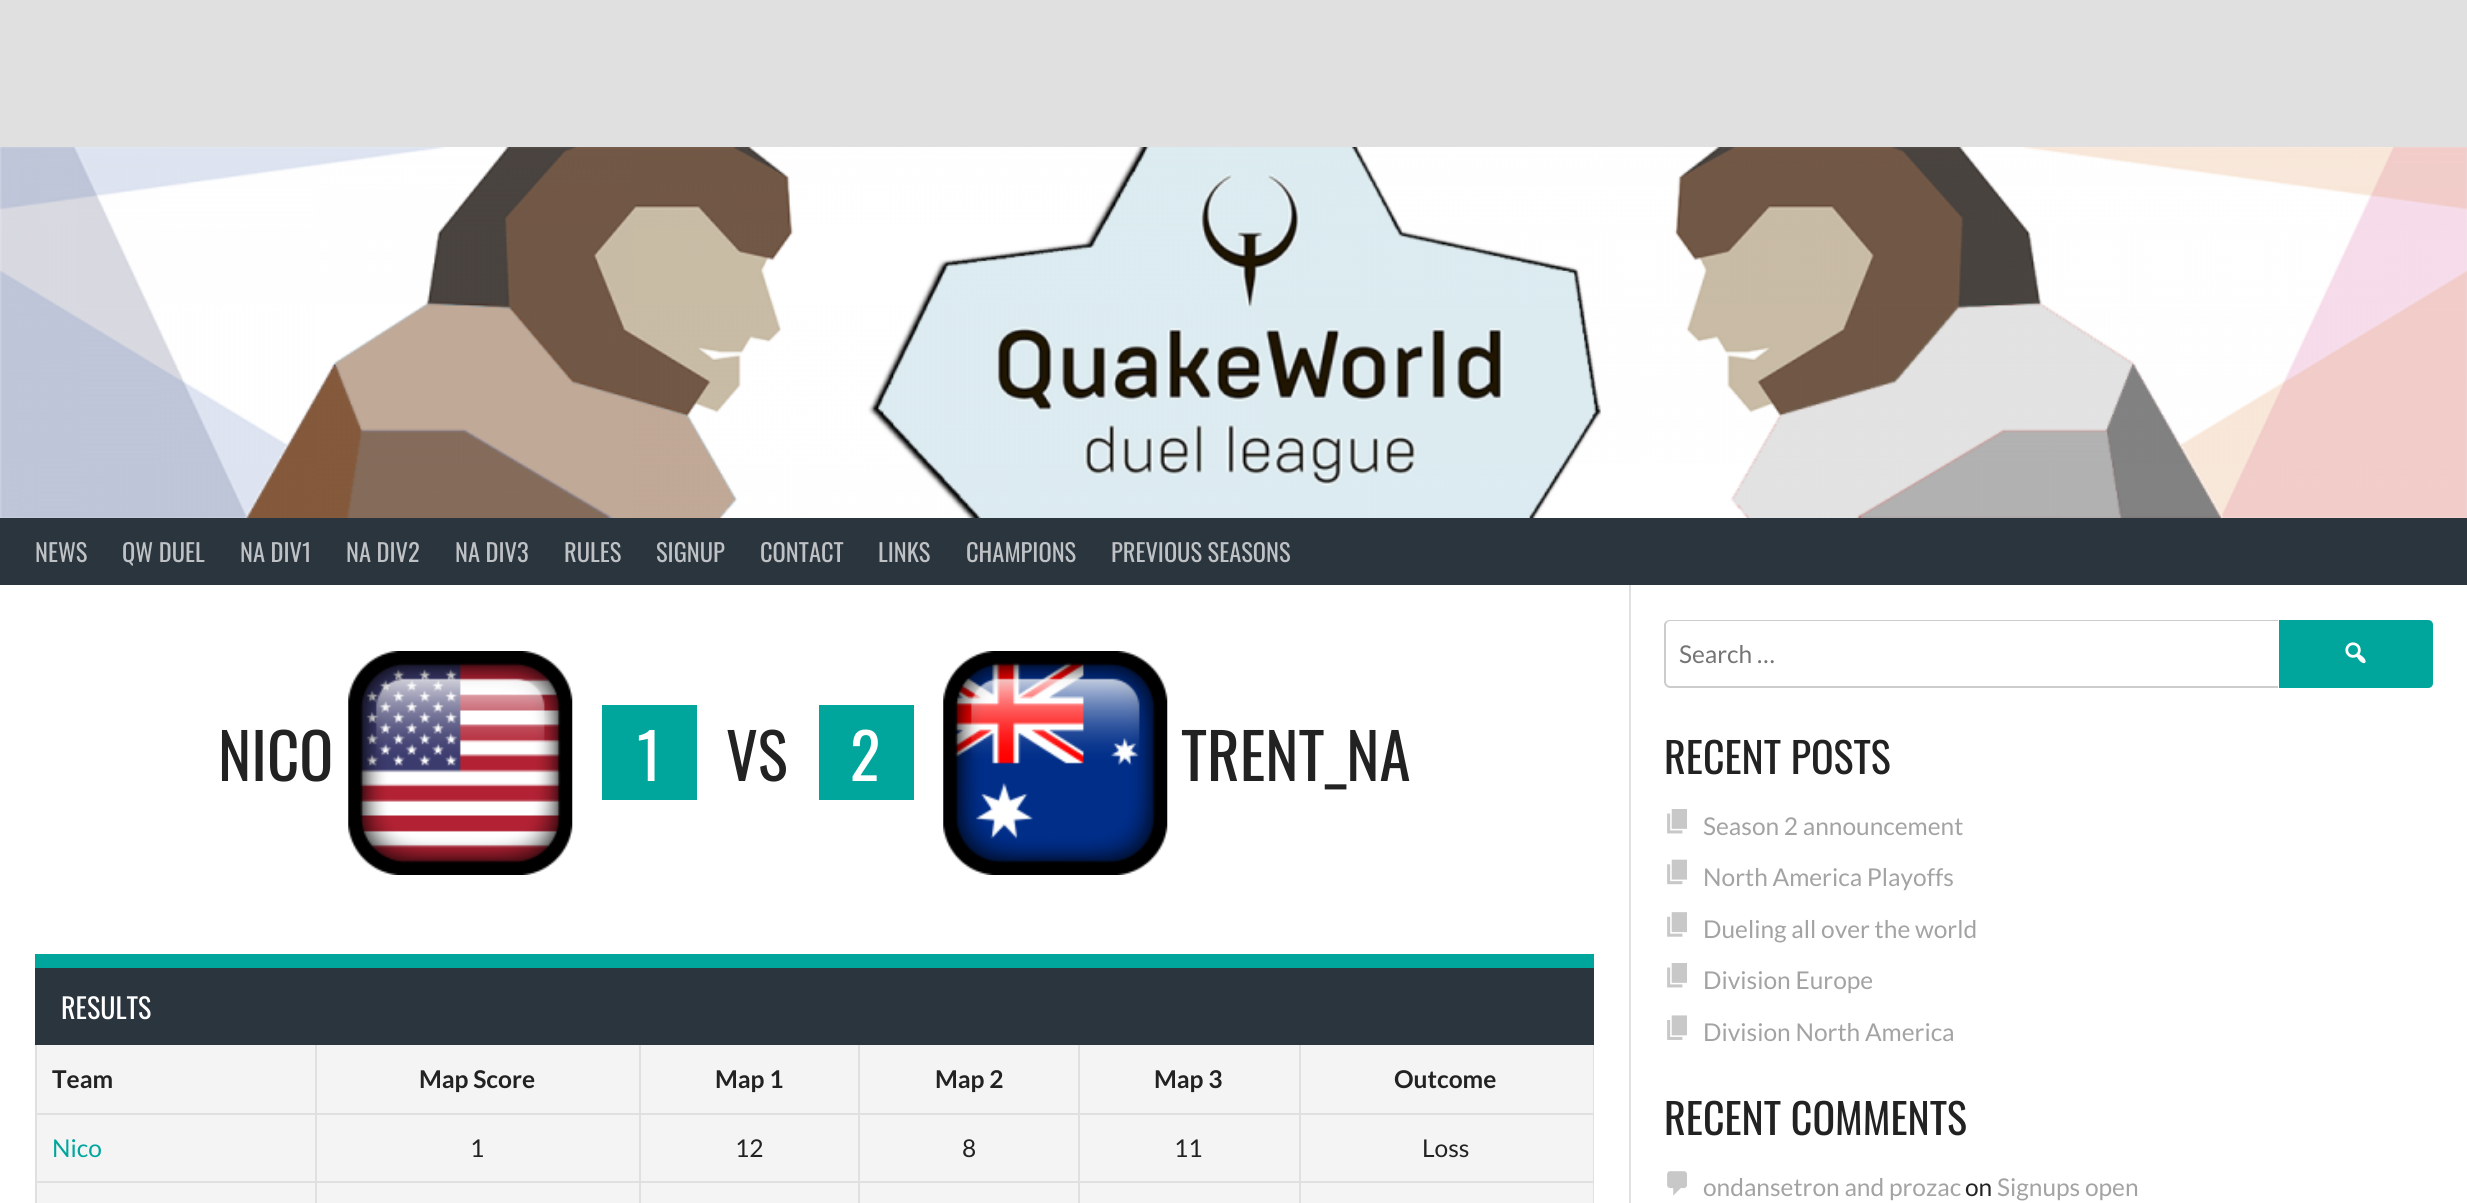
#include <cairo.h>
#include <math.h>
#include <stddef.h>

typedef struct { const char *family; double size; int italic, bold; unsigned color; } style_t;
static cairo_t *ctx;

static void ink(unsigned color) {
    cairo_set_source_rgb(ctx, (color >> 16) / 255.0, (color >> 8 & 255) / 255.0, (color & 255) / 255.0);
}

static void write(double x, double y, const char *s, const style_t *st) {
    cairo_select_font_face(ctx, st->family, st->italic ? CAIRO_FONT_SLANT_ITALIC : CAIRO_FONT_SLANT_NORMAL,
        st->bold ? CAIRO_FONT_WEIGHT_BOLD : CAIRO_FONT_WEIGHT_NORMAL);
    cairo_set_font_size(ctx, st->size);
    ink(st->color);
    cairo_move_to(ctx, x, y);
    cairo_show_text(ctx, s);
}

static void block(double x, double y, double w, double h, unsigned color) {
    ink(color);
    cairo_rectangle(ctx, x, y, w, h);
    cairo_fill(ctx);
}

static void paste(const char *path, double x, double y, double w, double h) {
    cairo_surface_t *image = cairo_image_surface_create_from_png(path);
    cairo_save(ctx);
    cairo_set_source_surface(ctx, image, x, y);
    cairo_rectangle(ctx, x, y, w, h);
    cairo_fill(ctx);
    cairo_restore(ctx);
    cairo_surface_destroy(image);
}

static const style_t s1 = {"Oswald", 24.5, 0, 0, 0xbfc2c5};
static const style_t s2 = {"Oswald", 63, 0, 0, 0x222222};
static const style_t s3 = {"Oswald", 63, 0, 0, 0xffffff};
static const style_t s4 = {"Oswald", 28, 0, 0, 0xffffff};
static const style_t s5 = {"Lato", 24.5, 0, 1, 0x222222};
static const style_t s6 = {"Lato", 24.5, 0, 0, 0x00a69c};
static const style_t s7 = {"Lato", 24.5, 0, 0, 0x222222};
static const style_t s8 = {"Lato", 24.5, 0, 0, 0x757575};
static const style_t s9 = {"Oswald", 42, 0, 0, 0x222222};
static const style_t s10 = {"Lato", 24.5, 0, 0, 0xa3a3a3};

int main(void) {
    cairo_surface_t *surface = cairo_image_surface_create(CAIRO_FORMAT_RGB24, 2467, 1203);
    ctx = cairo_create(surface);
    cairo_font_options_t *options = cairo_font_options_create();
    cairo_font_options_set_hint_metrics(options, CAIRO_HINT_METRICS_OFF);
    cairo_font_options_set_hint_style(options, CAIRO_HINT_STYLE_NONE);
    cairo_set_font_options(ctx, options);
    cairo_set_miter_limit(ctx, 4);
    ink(0xe0e0e0);
    cairo_paint(ctx);
    paste("pic1.png", 0, 147, 2467, 371);
    block(0, 518, 2467, 67, 0x2b353e);
    write(35, 562, "NEWS", &s1);
    write(122, 562, "QW DUEL", &s1);
    write(240, 562, "NA DIV1", &s1);
    write(346, 562, "NA DIV2", &s1);
    write(455, 562, "NA DIV3", &s1);
    write(564, 562, "RULES", &s1);
    write(656, 562, "SIGNUP", &s1);
    write(760, 562, "CONTACT", &s1);
    write(878, 562, "LINKS", &s1);
    write(966, 562, "CHAMPIONS", &s1);
    write(1111, 562, "PREVIOUS SEASONS", &s1);
    block(0, 585, 2467, 618, 0xffffff);
    block(1629, 585, 2, 618, 0xe0e0e0);
    write(218, 781, "NICO", &s2);
    paste("pic2.png", 348, 651, 225, 224);
    block(602, 705, 95, 95, 0x00a69c);
    write(637, 781, "1", &s3);
    write(726, 781, "VS", &s2);
    block(819, 705, 95, 95, 0x00a69c);
    write(850, 781, "2", &s3);
    paste("pic3.png", 943, 651, 225, 224);
    write(1181, 781, "TRENT_NA", &s2);
    block(1593, 1043, 1, 160, 0xe0e0e0);
    block(35, 1043, 2, 160, 0xe0e0e0);
    block(37, 1045, 1556, 158, 0xf4f4f4);
    block(1299, 1113, 295, 2, 0xe0e0e0);
    block(1299, 1181, 295, 2, 0xe0e0e0);
    block(1299, 1181, 2, 22, 0xe0e0e0);
    block(1078, 1181, 222, 2, 0xe0e0e0);
    block(1299, 1113, 2, 70, 0xe0e0e0);
    block(1078, 1113, 222, 2, 0xe0e0e0);
    block(1078, 1181, 2, 22, 0xe0e0e0);
    block(858, 1181, 222, 2, 0xe0e0e0);
    block(1078, 1113, 2, 70, 0xe0e0e0);
    block(858, 1113, 222, 2, 0xe0e0e0);
    block(858, 1181, 2, 22, 0xe0e0e0);
    block(639, 1181, 220, 2, 0xe0e0e0);
    block(858, 1113, 2, 70, 0xe0e0e0);
    block(639, 1113, 220, 2, 0xe0e0e0);
    block(639, 1181, 2, 22, 0xe0e0e0);
    block(315, 1181, 326, 2, 0xe0e0e0);
    block(639, 1113, 2, 70, 0xe0e0e0);
    block(315, 1113, 326, 2, 0xe0e0e0);
    block(315, 1181, 2, 22, 0xe0e0e0);
    block(35, 1181, 282, 2, 0xe0e0e0);
    block(315, 1113, 2, 70, 0xe0e0e0);
    block(35, 1113, 282, 2, 0xe0e0e0);
    block(315, 1043, 2, 72, 0xe0e0e0);
    block(639, 1043, 2, 72, 0xe0e0e0);
    block(858, 1043, 2, 72, 0xe0e0e0);
    block(1078, 1043, 2, 72, 0xe0e0e0);
    block(1299, 1043, 2, 72, 0xe0e0e0);
    block(35, 968, 1559, 77, 0x2b353e);
    block(35, 954, 1559, 14, 0x00a69c);
    write(61, 1019, "RESULTS", &s4);
    write(52, 1088, "Team", &s5);
    write(419, 1088, "Map Score", &s5);
    write(715, 1088, "Map 1", &s5);
    write(935, 1088, "Map 2", &s5);
    write(1154, 1088, "Map 3", &s5);
    write(1394, 1088, "Outcome", &s5);
    write(52, 1157, "Nico", &s6);
    write(470, 1157, "1", &s7);
    write(735, 1157, "12", &s7);
    write(962, 1157, "8", &s7);
    write(1174, 1157, "11", &s7);
    write(1422, 1157, "Loss", &s7);
    ink(0xcccccc);
    cairo_set_fill_rule(ctx, CAIRO_FILL_RULE_EVEN_ODD);
    cairo_new_path(ctx);
    cairo_move_to(ctx, 1670, 620);
    cairo_line_to(ctx, 2278, 620);
    cairo_line_to(ctx, 2278, 688);
    cairo_line_to(ctx, 1670, 688);
    cairo_curve_to(ctx, 1667, 688, 1664, 685, 1664, 682);
    cairo_line_to(ctx, 1664, 625);
    cairo_curve_to(ctx, 1664, 622, 1667, 620, 1670, 620);
    cairo_close_path(ctx);
    cairo_move_to(ctx, 1670, 621);
    cairo_line_to(ctx, 2278, 621);
    cairo_line_to(ctx, 2278, 686);
    cairo_line_to(ctx, 1670, 686);
    cairo_curve_to(ctx, 1668, 686, 1666, 684, 1666, 682);
    cairo_line_to(ctx, 1666, 625);
    cairo_curve_to(ctx, 1666, 623, 1668, 621, 1670, 621);
    cairo_close_path(ctx);
    cairo_fill(ctx);
    write(1679, 663, "Search …", &s8);
    ink(0x00a69c);
    cairo_new_path(ctx);
    cairo_move_to(ctx, 2279, 620);
    cairo_line_to(ctx, 2428, 620);
    cairo_curve_to(ctx, 2431, 620, 2433, 622, 2433, 625);
    cairo_line_to(ctx, 2433, 683);
    cairo_curve_to(ctx, 2433, 686, 2431, 688, 2428, 688);
    cairo_line_to(ctx, 2279, 688);
    cairo_close_path(ctx);
    cairo_fill(ctx);
    paste("pic4.png", 2345, 642, 21, 22);
    write(1664, 774, "RECENT POSTS", &s9);
    paste("pic5.png", 1667, 809, 20, 25);
    write(1703, 835, "Season 2 announcement", &s10);
    paste("pic6.png", 1667, 859, 20, 26);
    write(1703, 886, "North America Playoffs", &s10);
    paste("pic7.png", 1667, 912, 20, 25);
    write(1703, 938, "Dueling all over the world", &s10);
    paste("pic5.png", 1667, 963, 20, 25);
    write(1703, 989, "Division Europe", &s10);
    paste("pic8.png", 1667, 1015, 20, 25);
    write(1703, 1041, "Division North America", &s10);
    write(1664, 1135, "RECENT COMMENTS", &s9);
    paste("pic9.png", 1667, 1171, 20, 25);
    write(1703, 1196, "ondansetron and prozac", &s10);
    write(1965, 1196, "on", &s7);
    write(1997, 1196, "Signups open", &s10);
    cairo_surface_write_to_png(surface, "screenshot.png");
    cairo_font_options_destroy(options);
    cairo_destroy(ctx);
    cairo_surface_destroy(surface);
    return 0;
}
